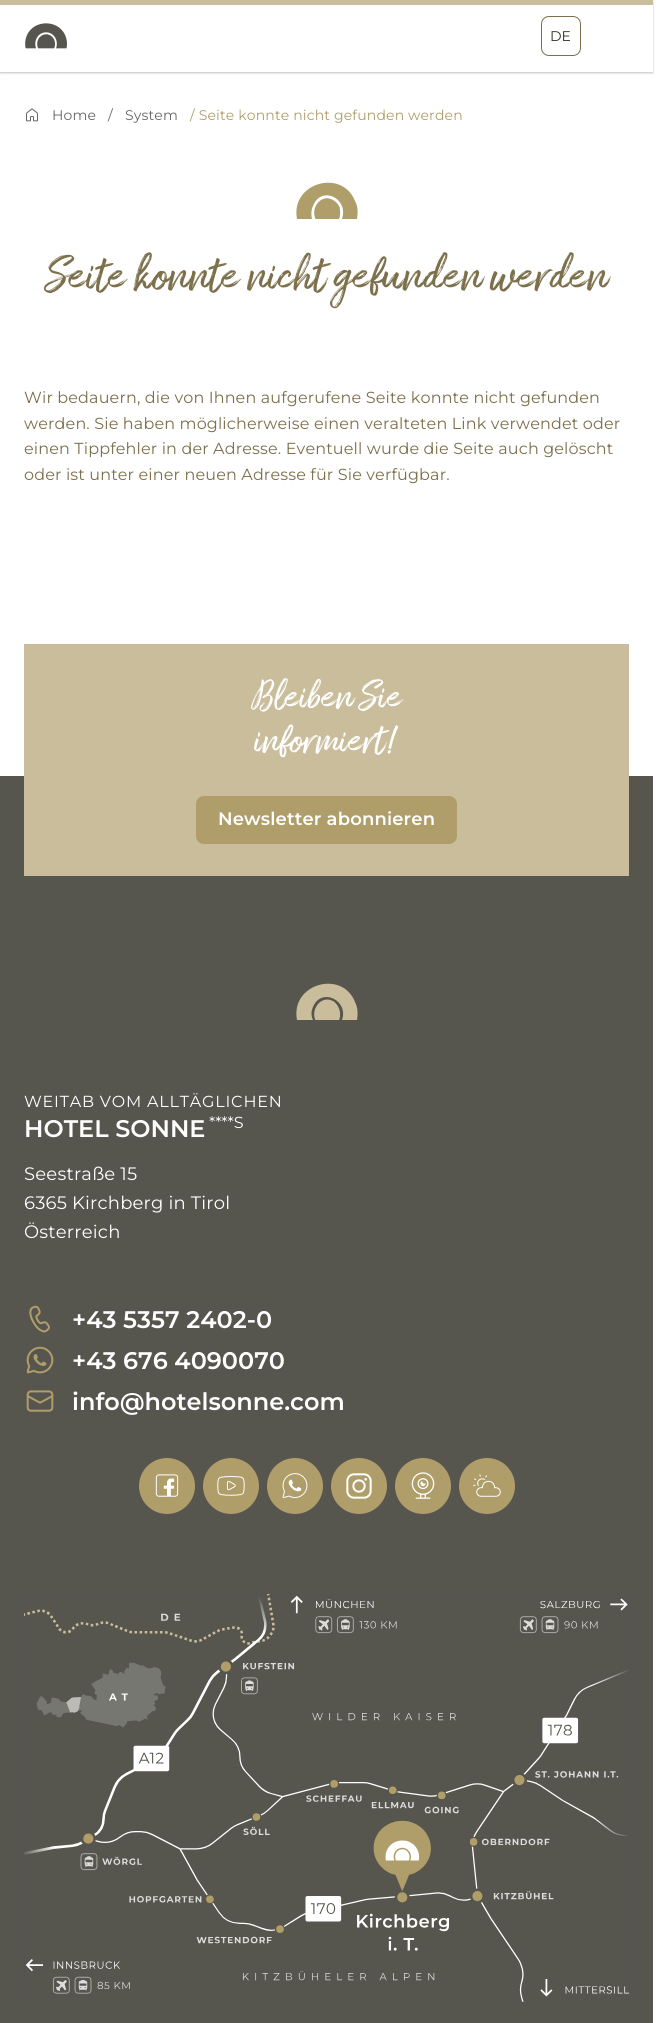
#include <cairo.h>
#include <math.h>
#include <stddef.h>

typedef struct { const char *family; double size; int italic, bold; unsigned color; } style_t;
static cairo_t *ctx;

static void ink(unsigned color) {
    cairo_set_source_rgb(ctx, (color >> 16) / 255.0, (color >> 8 & 255) / 255.0, (color & 255) / 255.0);
}

static void write(double x, double y, const char *s, const style_t *st) {
    cairo_select_font_face(ctx, st->family, st->italic ? CAIRO_FONT_SLANT_ITALIC : CAIRO_FONT_SLANT_NORMAL,
        st->bold ? CAIRO_FONT_WEIGHT_BOLD : CAIRO_FONT_WEIGHT_NORMAL);
    cairo_set_font_size(ctx, st->size);
    ink(st->color);
    cairo_move_to(ctx, x, y);
    cairo_show_text(ctx, s);
}

static void write_spaced(double x, double y, const char *s, double letter, double word) {
    cairo_move_to(ctx, x, y);
    while (*s) {
        char ch[5] = {0};
        int n = 0;
        do ch[n++] = *s++; while ((*s & 0xC0) == 0x80);
        cairo_show_text(ctx, ch);
        cairo_rel_move_to(ctx, letter + word * (*ch == ' '), 0);
    }
}

static void block(double x, double y, double w, double h, unsigned color) {
    ink(color);
    cairo_rectangle(ctx, x, y, w, h);
    cairo_fill(ctx);
}

static void round_path(double x, double y, double w, double h, double r) {
    cairo_new_sub_path(ctx);
    cairo_arc(ctx, x + w - r, y + h - r, r, 0, M_PI / 2);
    cairo_arc(ctx, x + r, y + h - r, r, M_PI / 2, M_PI);
    cairo_arc(ctx, x + r, y + r, r, M_PI, 1.5 * M_PI);
    cairo_arc(ctx, x + w - r, y + r, r, 1.5 * M_PI, 2 * M_PI);
    cairo_close_path(ctx);
}

static void blur_box(double x, double y, double w, double h, double r, double blur, double alpha) {
    cairo_push_group_with_content(ctx, CAIRO_CONTENT_ALPHA);
    cairo_set_operator(ctx, CAIRO_OPERATOR_SOURCE);
    for (int i = 15; i >= -15 && fmin(w, h) + blur * i / 3 > 0; i -= 2) {
        double e = blur * i / 6;
        cairo_set_source_rgba(ctx, 0, 0, 0, alpha * erfc((i - 1) / 8.5) / 2);
        round_path(x - e, y - e, w + 2 * e, h + 2 * e, fmax(0, fmin(r + e + blur * .6, fmin(w, h) / 2 + e)));
        cairo_fill(ctx);
    }
    cairo_pattern_t *soft = cairo_pop_group(ctx);
    cairo_mask(ctx, soft);
    cairo_pattern_destroy(soft);
}

static void paste(const char *path, double x, double y, double w, double h) {
    cairo_surface_t *image = cairo_image_surface_create_from_png(path);
    cairo_save(ctx);
    cairo_set_source_surface(ctx, image, x, y);
    cairo_rectangle(ctx, x, y, w, h);
    cairo_fill(ctx);
    cairo_restore(ctx);
    cairo_surface_destroy(image);
}

static const style_t s1 = {"Montserrat Thin", 14, 0, 0, 0x303028};
static const style_t s2 = {"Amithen", 48, 0, 0, 0x7c6f4b};
static const style_t s3 = {"Amithen", 40, 0, 0, 0xffffff};
static const style_t s4 = {"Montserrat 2 Thin", 24, 0, 0, 0xffffff};
static const style_t s5 = {"Montserrat Thin", 16, 0, 0, 0xffffff};

int main(void) {
    cairo_surface_t *surface = cairo_image_surface_create(CAIRO_FORMAT_RGB24, 663, 2023);
    ctx = cairo_create(surface);
    cairo_font_options_t *options = cairo_font_options_create();
    cairo_font_options_set_hint_metrics(options, CAIRO_HINT_METRICS_OFF);
    cairo_font_options_set_hint_style(options, CAIRO_HINT_STYLE_NONE);
    cairo_set_font_options(ctx, options);
    cairo_set_miter_limit(ctx, 4);
    ink(0xffffff);
    cairo_paint(ctx);
    cairo_save(ctx);
    cairo_set_fill_rule(ctx, CAIRO_FILL_RULE_EVEN_ODD);
    cairo_new_path(ctx);
    cairo_move_to(ctx, 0, 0);
    cairo_line_to(ctx, 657, 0);
    cairo_line_to(ctx, 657, 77);
    cairo_line_to(ctx, 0, 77);
    cairo_close_path(ctx);
    cairo_move_to(ctx, 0, 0);
    cairo_line_to(ctx, 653, 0);
    cairo_line_to(ctx, 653, 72);
    cairo_line_to(ctx, 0, 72);
    cairo_close_path(ctx);
    cairo_clip(ctx);
    ink(0x000000);
    blur_box(0, 1, 653, 72, 0, 1, 0.24);
    cairo_restore(ctx);
    block(0, 0, 653, 5, 0xc9bd9b);
    paste("pic1.png", 25, 23, 42, 26);
    round_path(541.5, 16.5, 39, 39, 7.5);
    ink(0x7c6f4b);
    cairo_set_line_width(ctx, 1);
    cairo_stroke(ctx);
    write(550, 41, "DE", &s1);
    paste("pic2.png", 26, 108, 12, 14);
    ink(0x666666);
    write_spaced(52, 120, "Home", 0.15, 0);
    write_spaced(108, 120, "/", 0.15, 0);
    write_spaced(125, 120, "System", 0.15, 0);
    ink(0xaf9d6a);
    write_spaced(190, 120, "/ Seite konnte nicht gefunden werden", 0.15, 0);
    cairo_new_path(ctx);
    cairo_move_to(ctx, 339, 219);
    cairo_curve_to(ctx, 340.5, 215.5, 340.5, 211, 339.5, 207);
    cairo_curve_to(ctx, 338.5, 204.5, 336.5, 202.5, 334.5, 201);
    cairo_curve_to(ctx, 322.5, 192, 310, 207, 315.5, 219);
    cairo_close_path(ctx);
    cairo_fill(ctx);
    cairo_new_path(ctx);
    cairo_move_to(ctx, 312, 219);
    cairo_curve_to(ctx, 311, 215, 311, 210, 313, 206);
    cairo_curve_to(ctx, 321, 185, 349, 198, 342, 219);
    cairo_line_to(ctx, 357, 219);
    cairo_curve_to(ctx, 358, 213, 358, 206, 355, 201);
    cairo_curve_to(ctx, 342, 168, 290, 183, 297, 219);
    cairo_close_path(ctx);
    cairo_fill(ctx);
    write(46, 287, "Seite konnte nicht gefunden werden", &s2);
    cairo_select_font_face(ctx, "Montserrat Thin", CAIRO_FONT_SLANT_NORMAL, CAIRO_FONT_WEIGHT_NORMAL);
    cairo_set_font_size(ctx, 16);
    write_spaced(24, 403, "Wir bedauern, die von Ihnen aufgerufene Seite konnte nicht gefunden", 0.15, 0);
    write_spaced(24, 429, "werden. Sie haben möglicherweise einen veralteten Link verwendet oder", 0.15, 0);
    write_spaced(24, 454, "einen Tippfehler in der Adresse. Eventuell wurde die Seite auch gelöscht", 0.15, 0);
    write_spaced(24, 480, "oder ist unter einer neuen Adresse für Sie verfügbar.", 0.15, 0);
    block(0, 776, 653, 1247, 0x56554e);
    block(24, 644, 605, 232, 0xc9bd9b);
    write(251, 706, "Bleiben Sie", &s3);
    write(254, 750, "informiert!", &s3);
    ink(0xaf9d6a);
    round_path(196, 796, 261, 48, 8);
    cairo_fill(ctx);
    cairo_select_font_face(ctx, "Montserrat 2 Thin", CAIRO_FONT_SLANT_NORMAL, CAIRO_FONT_WEIGHT_NORMAL);
    cairo_set_font_size(ctx, 18);
    ink(0xffffff);
    write_spaced(218, 825, "Newsletter abonnieren", 0.15, 0);
    cairo_save(ctx);
    cairo_rectangle(ctx, 296, 983, 62, 37);
    cairo_clip(ctx);
    ink(0xc9bd9b);
    cairo_new_path(ctx);
    cairo_move_to(ctx, 339, 1020.5);
    cairo_curve_to(ctx, 340.5, 1016.5, 340.5, 1012.5, 339, 1008.5);
    cairo_curve_to(ctx, 338, 1006, 336.5, 1004, 334.5, 1002);
    cairo_curve_to(ctx, 322.5, 993.5, 310, 1008.5, 315.5, 1020.5);
    cairo_close_path(ctx);
    cairo_fill(ctx);
    cairo_restore(ctx);
    ink(0xc9bd9b);
    cairo_new_path(ctx);
    cairo_move_to(ctx, 313, 1020);
    cairo_curve_to(ctx, 311, 1016, 311, 1011, 313, 1007);
    cairo_curve_to(ctx, 321, 987, 349, 1000, 342, 1020);
    cairo_line_to(ctx, 357, 1020);
    cairo_curve_to(ctx, 358, 1014, 358, 1008, 355, 1002);
    cairo_curve_to(ctx, 342, 969, 290, 984, 297, 1020);
    cairo_close_path(ctx);
    cairo_fill(ctx);
    cairo_select_font_face(ctx, "Montserrat Thin", CAIRO_FONT_SLANT_NORMAL, CAIRO_FONT_WEIGHT_NORMAL);
    cairo_set_font_size(ctx, 16);
    ink(0xffffff);
    write_spaced(24, 1107, "WEITAB VOM ALLTÄGLICHEN", 0.8, 0);
    write(24, 1137, "HOTEL SONNE", &s4);
    write(209, 1128, "****S", &s5);
    cairo_set_font_size(ctx, 18);
    write_spaced(24, 1180, "Seestraße 15", 0.2, 0);
    write_spaced(24, 1209, "6365 Kirchberg in Tirol", 0.2, 0);
    write_spaced(24, 1238, "Österreich", 0.2, 0);
    paste("pic3.png", 29, 1305, 21, 28);
    write(72, 1328, "+43 5357 2402-0", &s4);
    paste("pic4.png", 26, 1346, 28, 28);
    write(72, 1369, "+43 676 4090070", &s4);
    paste("pic5.png", 26, 1390, 28, 22);
    write(72, 1410, "info@hotelsonne.com", &s4);
    ink(0xaf9d6a);
    cairo_new_path(ctx);
    cairo_arc(ctx, 167, 1486, 28, 0, 2 * M_PI);
    cairo_fill(ctx);
    paste("pic6.png", 155, 1474, 24, 23);
    cairo_arc(ctx, 231, 1486, 28, 0, 2 * M_PI);
    cairo_fill(ctx);
    paste("pic7.png", 217, 1476, 28, 20);
    cairo_arc(ctx, 295, 1486, 28, 0, 2 * M_PI);
    cairo_fill(ctx);
    paste("pic8.png", 282, 1473, 26, 25);
    cairo_arc(ctx, 359, 1486, 28, 0, 2 * M_PI);
    cairo_fill(ctx);
    paste("pic9.png", 346, 1473, 26, 26);
    cairo_arc(ctx, 423, 1486, 28, 0, 2 * M_PI);
    cairo_fill(ctx);
    paste("pic10.png", 411, 1472, 24, 27);
    cairo_arc(ctx, 487, 1486, 28, 0, 2 * M_PI);
    cairo_fill(ctx);
    paste("pic11.png", 473, 1474, 28, 23);
    paste("pic12.png", 24, 1594, 605, 408);
    cairo_surface_write_to_png(surface, "screenshot.png");
    cairo_font_options_destroy(options);
    cairo_destroy(ctx);
    cairo_surface_destroy(surface);
    return 0;
}
